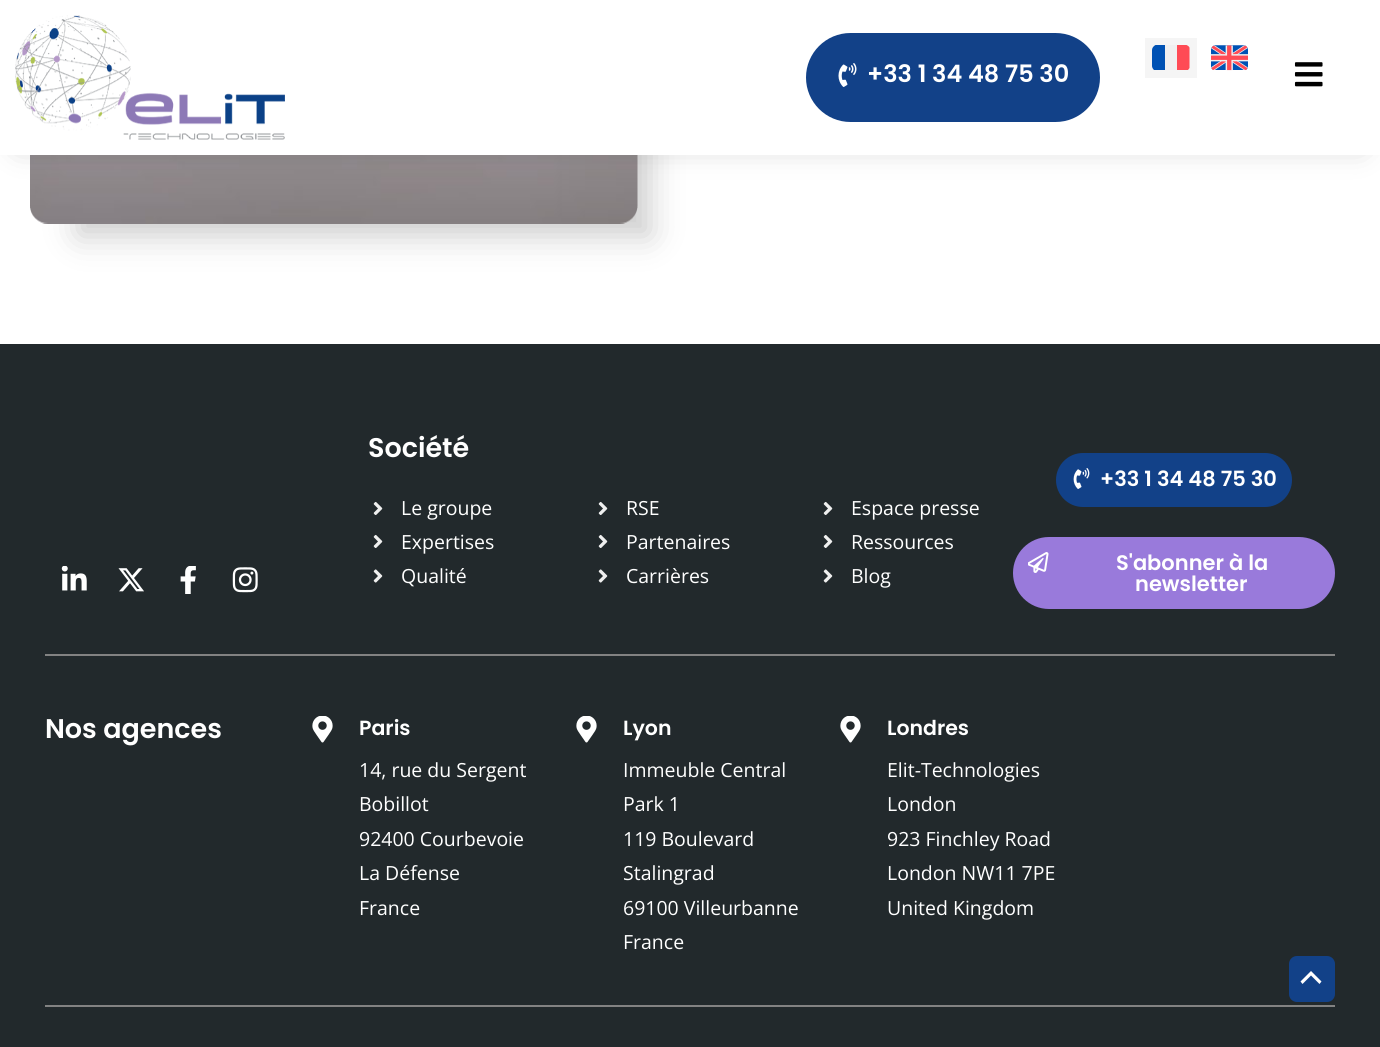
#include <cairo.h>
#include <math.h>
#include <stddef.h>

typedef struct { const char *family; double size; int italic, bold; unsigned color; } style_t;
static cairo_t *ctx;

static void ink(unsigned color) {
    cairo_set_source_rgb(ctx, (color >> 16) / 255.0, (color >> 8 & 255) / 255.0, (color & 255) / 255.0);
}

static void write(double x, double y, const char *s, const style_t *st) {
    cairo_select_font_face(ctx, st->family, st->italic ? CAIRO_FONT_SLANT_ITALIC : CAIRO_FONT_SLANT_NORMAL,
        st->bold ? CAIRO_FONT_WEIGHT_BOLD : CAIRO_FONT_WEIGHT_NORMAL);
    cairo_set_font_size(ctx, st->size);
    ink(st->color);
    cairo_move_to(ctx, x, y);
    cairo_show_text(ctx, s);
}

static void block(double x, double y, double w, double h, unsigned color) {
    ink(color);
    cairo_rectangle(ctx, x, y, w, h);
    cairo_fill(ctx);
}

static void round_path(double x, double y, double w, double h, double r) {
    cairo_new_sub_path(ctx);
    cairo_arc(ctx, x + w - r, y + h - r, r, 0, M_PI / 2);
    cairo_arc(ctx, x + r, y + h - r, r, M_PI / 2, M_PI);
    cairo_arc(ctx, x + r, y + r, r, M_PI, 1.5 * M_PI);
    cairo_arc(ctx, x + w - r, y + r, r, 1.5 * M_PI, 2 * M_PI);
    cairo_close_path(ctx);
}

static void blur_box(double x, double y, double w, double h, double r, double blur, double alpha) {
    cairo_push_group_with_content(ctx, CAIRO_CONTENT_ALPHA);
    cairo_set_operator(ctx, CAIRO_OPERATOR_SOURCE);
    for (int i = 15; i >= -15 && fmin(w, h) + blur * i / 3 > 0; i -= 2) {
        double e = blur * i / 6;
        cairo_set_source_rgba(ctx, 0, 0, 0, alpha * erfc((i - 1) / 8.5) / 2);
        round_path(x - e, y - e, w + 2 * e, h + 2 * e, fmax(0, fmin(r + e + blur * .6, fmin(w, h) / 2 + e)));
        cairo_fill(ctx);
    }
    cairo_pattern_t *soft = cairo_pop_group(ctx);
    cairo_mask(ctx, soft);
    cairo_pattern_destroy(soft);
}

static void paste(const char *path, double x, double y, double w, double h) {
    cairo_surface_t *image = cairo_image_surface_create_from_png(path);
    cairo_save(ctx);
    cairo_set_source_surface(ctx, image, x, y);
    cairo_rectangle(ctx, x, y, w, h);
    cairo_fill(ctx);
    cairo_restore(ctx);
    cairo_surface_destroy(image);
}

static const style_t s1 = {"Poppins SemiBold", 24, 0, 0, 0xffffff};
static const style_t s2 = {"Poppins SemiBold", 27, 0, 0, 0xffffff};
static const style_t s3 = {"Open Sans", 19.5, 0, 0, 0xffffff};
static const style_t s4 = {"Poppins SemiBold", 21, 0, 0, 0xffffff};
static const style_t s5 = {"Poppins SemiBold", 20.5, 0, 0, 0xffffff};

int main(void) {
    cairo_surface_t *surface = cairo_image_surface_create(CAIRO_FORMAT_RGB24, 1380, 1047);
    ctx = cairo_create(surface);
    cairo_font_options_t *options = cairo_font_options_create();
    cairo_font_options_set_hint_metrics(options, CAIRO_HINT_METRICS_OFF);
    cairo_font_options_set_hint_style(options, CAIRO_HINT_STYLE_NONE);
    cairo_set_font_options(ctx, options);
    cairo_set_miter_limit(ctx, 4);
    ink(0xffffff);
    cairo_paint(ctx);
    ink(0x000000);
    blur_box(78, -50, 572, 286, 0, 16.5, 0.2);
    paste("pic1.png", 30, 155, 608, 69);
    blur_box(18, 29, 1344, 118, 0, 15, 0.2);
    block(0, 0, 1380, 155, 0xffffff);
    paste("pic2.png", 15, 15, 270, 125);
    ink(0x124188);
    round_path(806, 33, 294, 89, 44.5);
    cairo_fill(ctx);
    paste("pic3.png", 838, 63, 19, 24);
    write(867, 82, "+33 1 34 48 75 30", &s1);
    block(1145, 38, 52, 40, 0xf5f5f5);
    ink(0xf0f0f0);
    cairo_new_path(ctx);
    cairo_move_to(ctx, 1186.5, 45);
    cairo_line_to(ctx, 1155.5, 45);
    cairo_curve_to(ctx, 1153.5, 46, 1152, 48, 1152, 50);
    cairo_line_to(ctx, 1152, 66);
    cairo_curve_to(ctx, 1152, 67.5, 1153, 69, 1154, 70);
    cairo_line_to(ctx, 1188, 70);
    cairo_line_to(ctx, 1189.5, 68);
    cairo_line_to(ctx, 1189.5, 48);
    cairo_curve_to(ctx, 1189.5, 46.5, 1187.5, 45.5, 1186.5, 45);
    cairo_close_path(ctx);
    cairo_fill(ctx);
    ink(0x0052b4);
    cairo_new_path(ctx);
    cairo_move_to(ctx, 1165, 45);
    cairo_line_to(ctx, 1155.5, 45);
    cairo_curve_to(ctx, 1153.5, 46, 1152, 48, 1152, 50);
    cairo_line_to(ctx, 1152, 66);
    cairo_curve_to(ctx, 1152, 67.5, 1153, 69, 1154, 70);
    cairo_line_to(ctx, 1165, 70);
    cairo_close_path(ctx);
    cairo_fill(ctx);
    ink(0xff4b55);
    cairo_new_path(ctx);
    cairo_move_to(ctx, 1186.5, 45);
    cairo_line_to(ctx, 1177, 45);
    cairo_line_to(ctx, 1177, 70);
    cairo_line_to(ctx, 1188, 70);
    cairo_line_to(ctx, 1189.5, 68);
    cairo_line_to(ctx, 1189.5, 48);
    cairo_curve_to(ctx, 1189.5, 46.5, 1187.5, 45.5, 1186.5, 45);
    cairo_close_path(ctx);
    cairo_fill(ctx);
    paste("pic4.png", 1211, 45, 37, 26);
    paste("pic5.png", 1294, 62, 29, 25);
    block(0, 344, 1380, 703, 0x22292c);
    paste("pic6.png", 61, 566, 26, 25);
    paste("pic7.png", 118, 568, 26, 24);
    paste("pic8.png", 180, 566, 16, 28);
    paste("pic9.png", 232, 567, 26, 26);
    write(368, 457, "Société", &s2);
    paste("pic10.png", 373, 501, 10, 14);
    write(401, 515, "Le groupe", &s3);
    paste("pic10.png", 373, 534, 10, 14);
    write(401, 549, "Expertises", &s3);
    paste("pic11.png", 373, 569, 10, 14);
    write(401, 583, "Qualité", &s3);
    paste("pic10.png", 598, 501, 10, 14);
    write(626, 515, "RSE", &s3);
    paste("pic10.png", 598, 534, 10, 14);
    write(626, 549, "Partenaires", &s3);
    paste("pic11.png", 598, 569, 10, 14);
    write(626, 583, "Carrières", &s3);
    paste("pic10.png", 823, 501, 10, 14);
    write(851, 515, "Espace presse", &s3);
    paste("pic10.png", 823, 534, 10, 14);
    write(851, 549, "Ressources", &s3);
    paste("pic11.png", 823, 569, 10, 14);
    write(851, 583, "Blog", &s3);
    ink(0x124188);
    round_path(1056, 453, 236, 54, 27);
    cairo_fill(ctx);
    paste("pic12.png", 1073, 468, 17, 21);
    write(1100, 486, "+33 1 34 48 75 30", &s4);
    ink(0x997adb);
    round_path(1013, 537, 322, 72, 36);
    cairo_fill(ctx);
    paste("pic13.png", 1028, 552, 21, 21);
    write(1116, 570, "S'abonner à la", &s4);
    write(1135, 591, "newsletter", &s4);
    block(45, 654, 1290, 2, 0x828282);
    block(45, 1005, 1290, 2, 0x828282);
    write(45, 738, "Nos agences", &s2);
    paste("pic14.png", 312, 716, 21, 27);
    write(359, 735, "Paris", &s5);
    write(359, 777, "14, rue du Sergent", &s3);
    write(359, 811, "Bobillot", &s3);
    write(359, 846, "92400 Courbevoie", &s3);
    write(359, 880, "La Défense", &s3);
    write(359, 915, "France", &s3);
    paste("pic14.png", 576, 716, 21, 27);
    write(623, 735, "Lyon", &s5);
    write(623, 777, "Immeuble Central", &s3);
    write(623, 811, "Park 1", &s3);
    write(623, 846, "119 Boulevard", &s3);
    write(623, 880, "Stalingrad", &s3);
    write(623, 915, "69100 Villeurbanne", &s3);
    write(623, 949, "France", &s3);
    paste("pic14.png", 840, 716, 21, 27);
    write(887, 735, "Londres", &s5);
    write(887, 777, "Elit-Technologies", &s3);
    write(887, 811, "London", &s3);
    write(887, 846, "923 Finchley Road", &s3);
    write(887, 880, "London NW11 7PE", &s3);
    write(887, 915, "United Kingdom", &s3);
    ink(0x124188);
    round_path(1289, 956, 46, 46, 8);
    cairo_fill(ctx);
    ink(0xffffff);
    cairo_new_path(ctx);
    cairo_move_to(ctx, 1321.5, 981.5);
    cairo_line_to(ctx, 1311, 971);
    cairo_line_to(ctx, 1300.5, 981.5);
    cairo_line_to(ctx, 1302.5, 984);
    cairo_line_to(ctx, 1311, 975.5);
    cairo_line_to(ctx, 1319.5, 984);
    cairo_close_path(ctx);
    cairo_fill(ctx);
    cairo_surface_write_to_png(surface, "screenshot.png");
    cairo_font_options_destroy(options);
    cairo_destroy(ctx);
    cairo_surface_destroy(surface);
    return 0;
}
